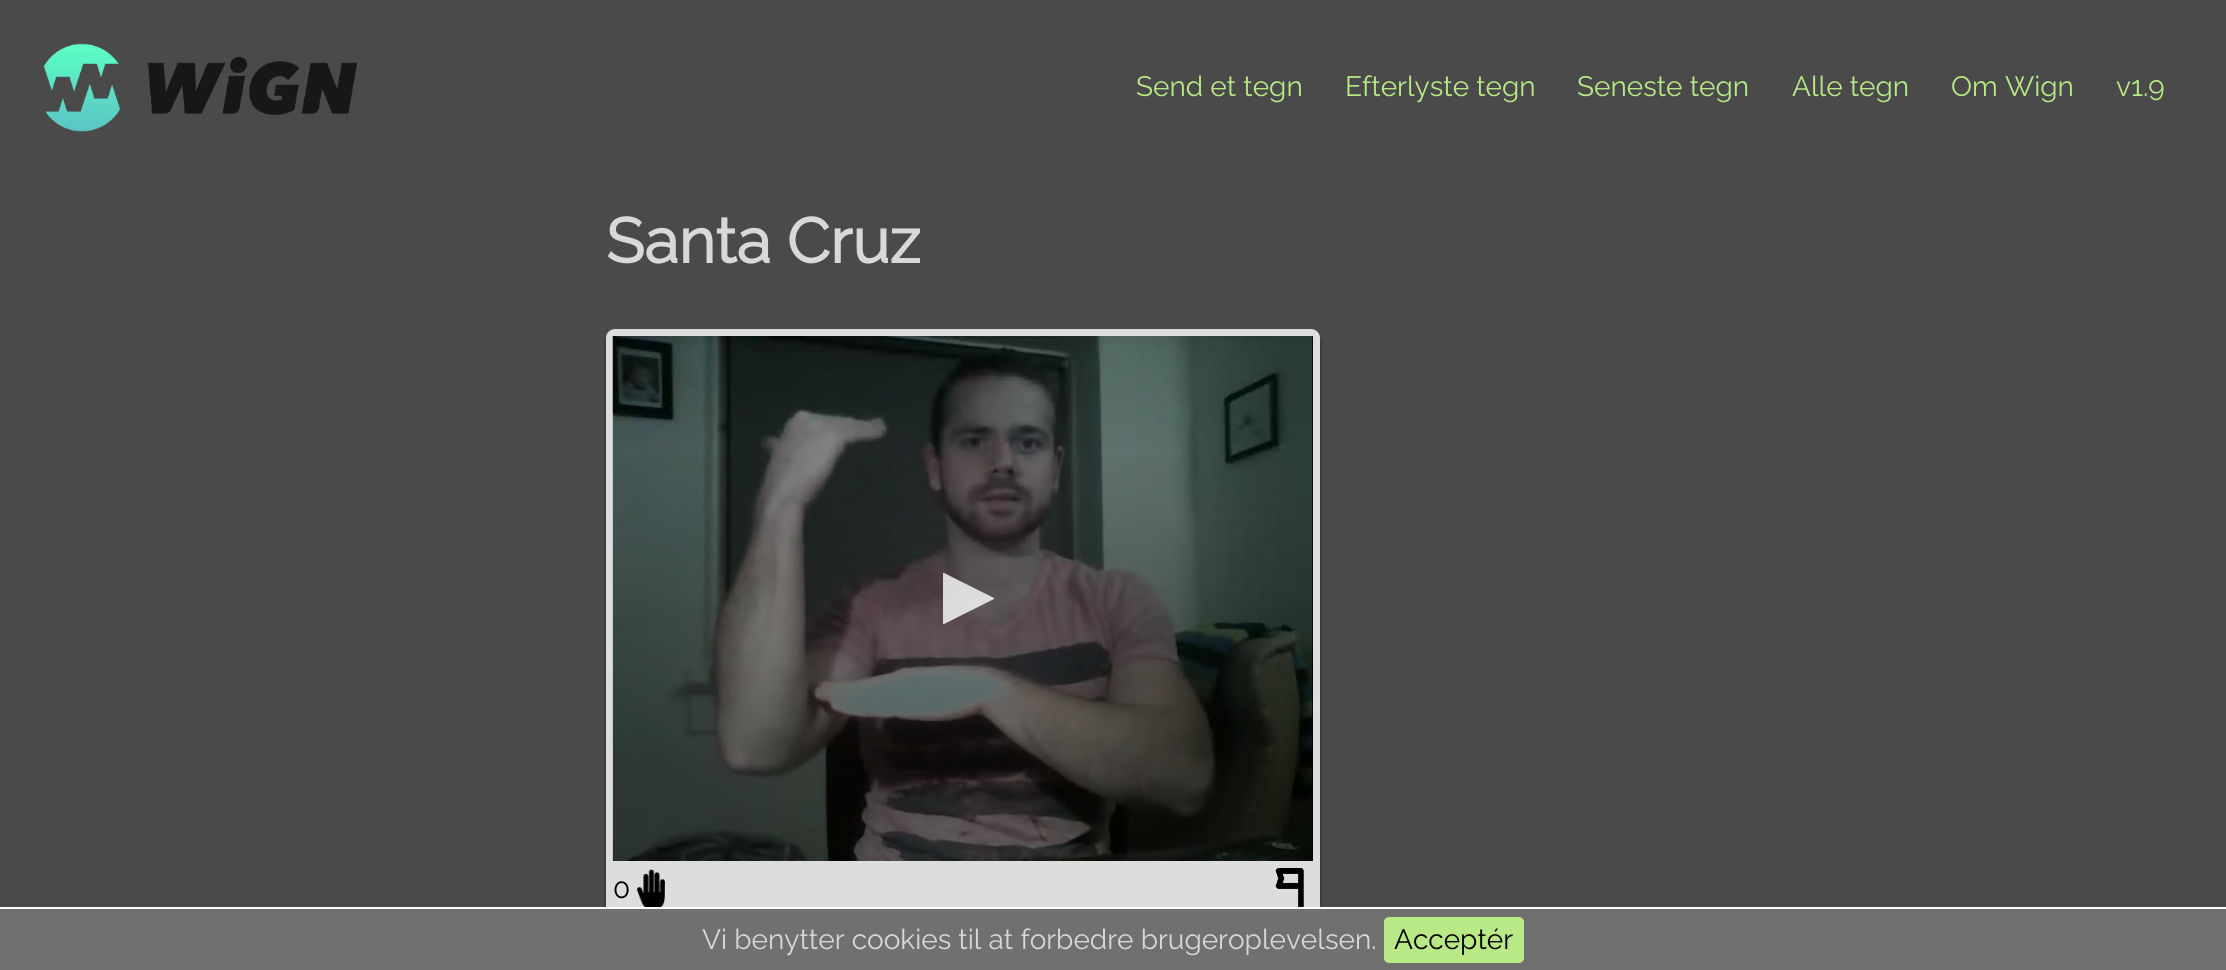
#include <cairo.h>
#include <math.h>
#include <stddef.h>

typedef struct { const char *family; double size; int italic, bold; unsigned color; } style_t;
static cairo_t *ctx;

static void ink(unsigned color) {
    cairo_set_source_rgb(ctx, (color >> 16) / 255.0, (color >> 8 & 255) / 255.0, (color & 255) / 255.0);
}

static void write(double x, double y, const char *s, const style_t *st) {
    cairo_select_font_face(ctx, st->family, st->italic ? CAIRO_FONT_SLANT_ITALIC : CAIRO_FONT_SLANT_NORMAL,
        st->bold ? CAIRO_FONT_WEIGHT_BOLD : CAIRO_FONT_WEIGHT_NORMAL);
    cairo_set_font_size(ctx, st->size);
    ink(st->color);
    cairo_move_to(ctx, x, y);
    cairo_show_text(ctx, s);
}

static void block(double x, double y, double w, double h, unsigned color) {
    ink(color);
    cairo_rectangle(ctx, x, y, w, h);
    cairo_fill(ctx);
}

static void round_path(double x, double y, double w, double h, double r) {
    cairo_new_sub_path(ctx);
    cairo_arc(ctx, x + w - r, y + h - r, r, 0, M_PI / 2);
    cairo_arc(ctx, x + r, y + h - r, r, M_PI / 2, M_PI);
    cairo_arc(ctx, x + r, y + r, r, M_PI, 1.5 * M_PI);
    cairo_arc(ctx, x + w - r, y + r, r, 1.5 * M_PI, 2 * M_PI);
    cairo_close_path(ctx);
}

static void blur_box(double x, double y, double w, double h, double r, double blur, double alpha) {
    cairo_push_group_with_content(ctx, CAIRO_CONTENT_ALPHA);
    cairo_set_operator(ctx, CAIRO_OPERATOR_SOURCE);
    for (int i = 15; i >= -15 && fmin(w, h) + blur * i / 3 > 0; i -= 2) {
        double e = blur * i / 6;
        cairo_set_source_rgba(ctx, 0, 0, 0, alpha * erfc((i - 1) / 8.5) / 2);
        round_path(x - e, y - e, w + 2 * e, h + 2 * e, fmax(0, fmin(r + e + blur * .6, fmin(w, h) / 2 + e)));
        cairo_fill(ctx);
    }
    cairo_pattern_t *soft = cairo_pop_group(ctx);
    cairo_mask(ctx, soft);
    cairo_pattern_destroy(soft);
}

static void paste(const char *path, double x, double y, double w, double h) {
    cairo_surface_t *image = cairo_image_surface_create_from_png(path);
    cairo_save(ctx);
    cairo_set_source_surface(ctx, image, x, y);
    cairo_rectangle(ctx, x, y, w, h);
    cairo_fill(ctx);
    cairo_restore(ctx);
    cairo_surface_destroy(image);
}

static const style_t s1 = {"Raleway", 28, 0, 0, 0xb8e986};
static const style_t s2 = {"Raleway", 63, 0, 1, 0xd8d8d8};
static const style_t s3 = {"Raleway", 28, 0, 0, 0x000000};
static const style_t s4 = {"Raleway", 28, 0, 0, 0xd8d8d8};

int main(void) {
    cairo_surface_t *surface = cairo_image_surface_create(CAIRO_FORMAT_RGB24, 2226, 970);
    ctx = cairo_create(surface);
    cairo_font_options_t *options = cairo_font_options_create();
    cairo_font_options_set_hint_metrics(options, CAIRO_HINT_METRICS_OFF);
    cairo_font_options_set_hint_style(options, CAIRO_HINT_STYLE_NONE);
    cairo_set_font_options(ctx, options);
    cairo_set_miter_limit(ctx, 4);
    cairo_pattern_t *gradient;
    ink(0x4a4a4a);
    cairo_paint(ctx);
    paste("pic1.png", 43, 43, 314, 89);
    write(1136, 96, "Send et tegn", &s1);
    write(1345, 96, "Efterlyste tegn", &s1);
    write(1577, 96, "Seneste tegn", &s1);
    write(1792, 96, "Alle tegn", &s1);
    write(1951, 96, "Om Wign", &s1);
    write(2116, 96, "v1.9", &s1);
    write(606, 263, "Santa Cruz", &s2);
    ink(0x000000);
    blur_box(606, 333, 714, 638, 9, 2, 0.5);
    ink(0xdddddd);
    cairo_new_path(ctx);
    cairo_move_to(ctx, 615, 332.5);
    cairo_line_to(ctx, 1311, 332.5);
    cairo_curve_to(ctx, 1314, 332.5, 1316.5, 335, 1316.5, 338);
    cairo_line_to(ctx, 1316.5, 964.5);
    cairo_line_to(ctx, 609.5, 964.5);
    cairo_line_to(ctx, 609.5, 338);
    cairo_curve_to(ctx, 609.5, 335, 612, 332.5, 615, 332.5);
    cairo_close_path(ctx);
    cairo_fill_preserve(ctx);
    cairo_set_line_width(ctx, 7);
    cairo_stroke(ctx);
    block(1312, 336, 1, 525, 0x000000);
    paste("pic2.png", 612, 336, 701, 525);
    gradient = cairo_pattern_create_linear(963, 441, 963, 861);
    cairo_pattern_add_color_stop_rgba(gradient, 0, 0, 0, 0, 0);
    cairo_pattern_add_color_stop_rgba(gradient, 0.77, 0, 0, 0, 0.4);
    cairo_pattern_add_color_stop_rgba(gradient, 1, 0, 0, 0, 0.4);
    cairo_set_source(ctx, gradient);
    cairo_pattern_destroy(gradient);
    cairo_rectangle(ctx, 613, 458, 700, 403);
    cairo_fill(ctx);
    cairo_set_source_rgba(ctx, 0, 0, 0, 0.4);
    cairo_rectangle(ctx, 613, 336, 700, 525);
    cairo_fill(ctx);
    cairo_set_source_rgba(ctx, 1, 1, 1, 0.8);
    cairo_new_path(ctx);
    cairo_move_to(ctx, 944, 624);
    cairo_line_to(ctx, 943, 624);
    cairo_line_to(ctx, 943, 573);
    cairo_line_to(ctx, 944, 573);
    cairo_line_to(ctx, 994, 598);
    cairo_curve_to(ctx, 994, 598, 994, 599, 994, 599);
    cairo_close_path(ctx);
    cairo_fill(ctx);
    write(613, 898, "0", &s3);
    paste("pic3.png", 637, 869, 28, 38);
    paste("pic4.png", 1275, 868, 29, 39);
    block(0, 909, 2226, 61, 0x707070);
    block(0, 907, 2226, 2, 0xffffff);
    write(702, 949, "Vi benytter cookies til at forbedre brugeroplevelsen.", &s4);
    ink(0xb8e986);
    round_path(1384, 917, 140, 46, 5);
    cairo_fill(ctx);
    write(1394, 949, "Acceptér", &s3);
    cairo_surface_write_to_png(surface, "screenshot.png");
    cairo_font_options_destroy(options);
    cairo_destroy(ctx);
    cairo_surface_destroy(surface);
    return 0;
}
